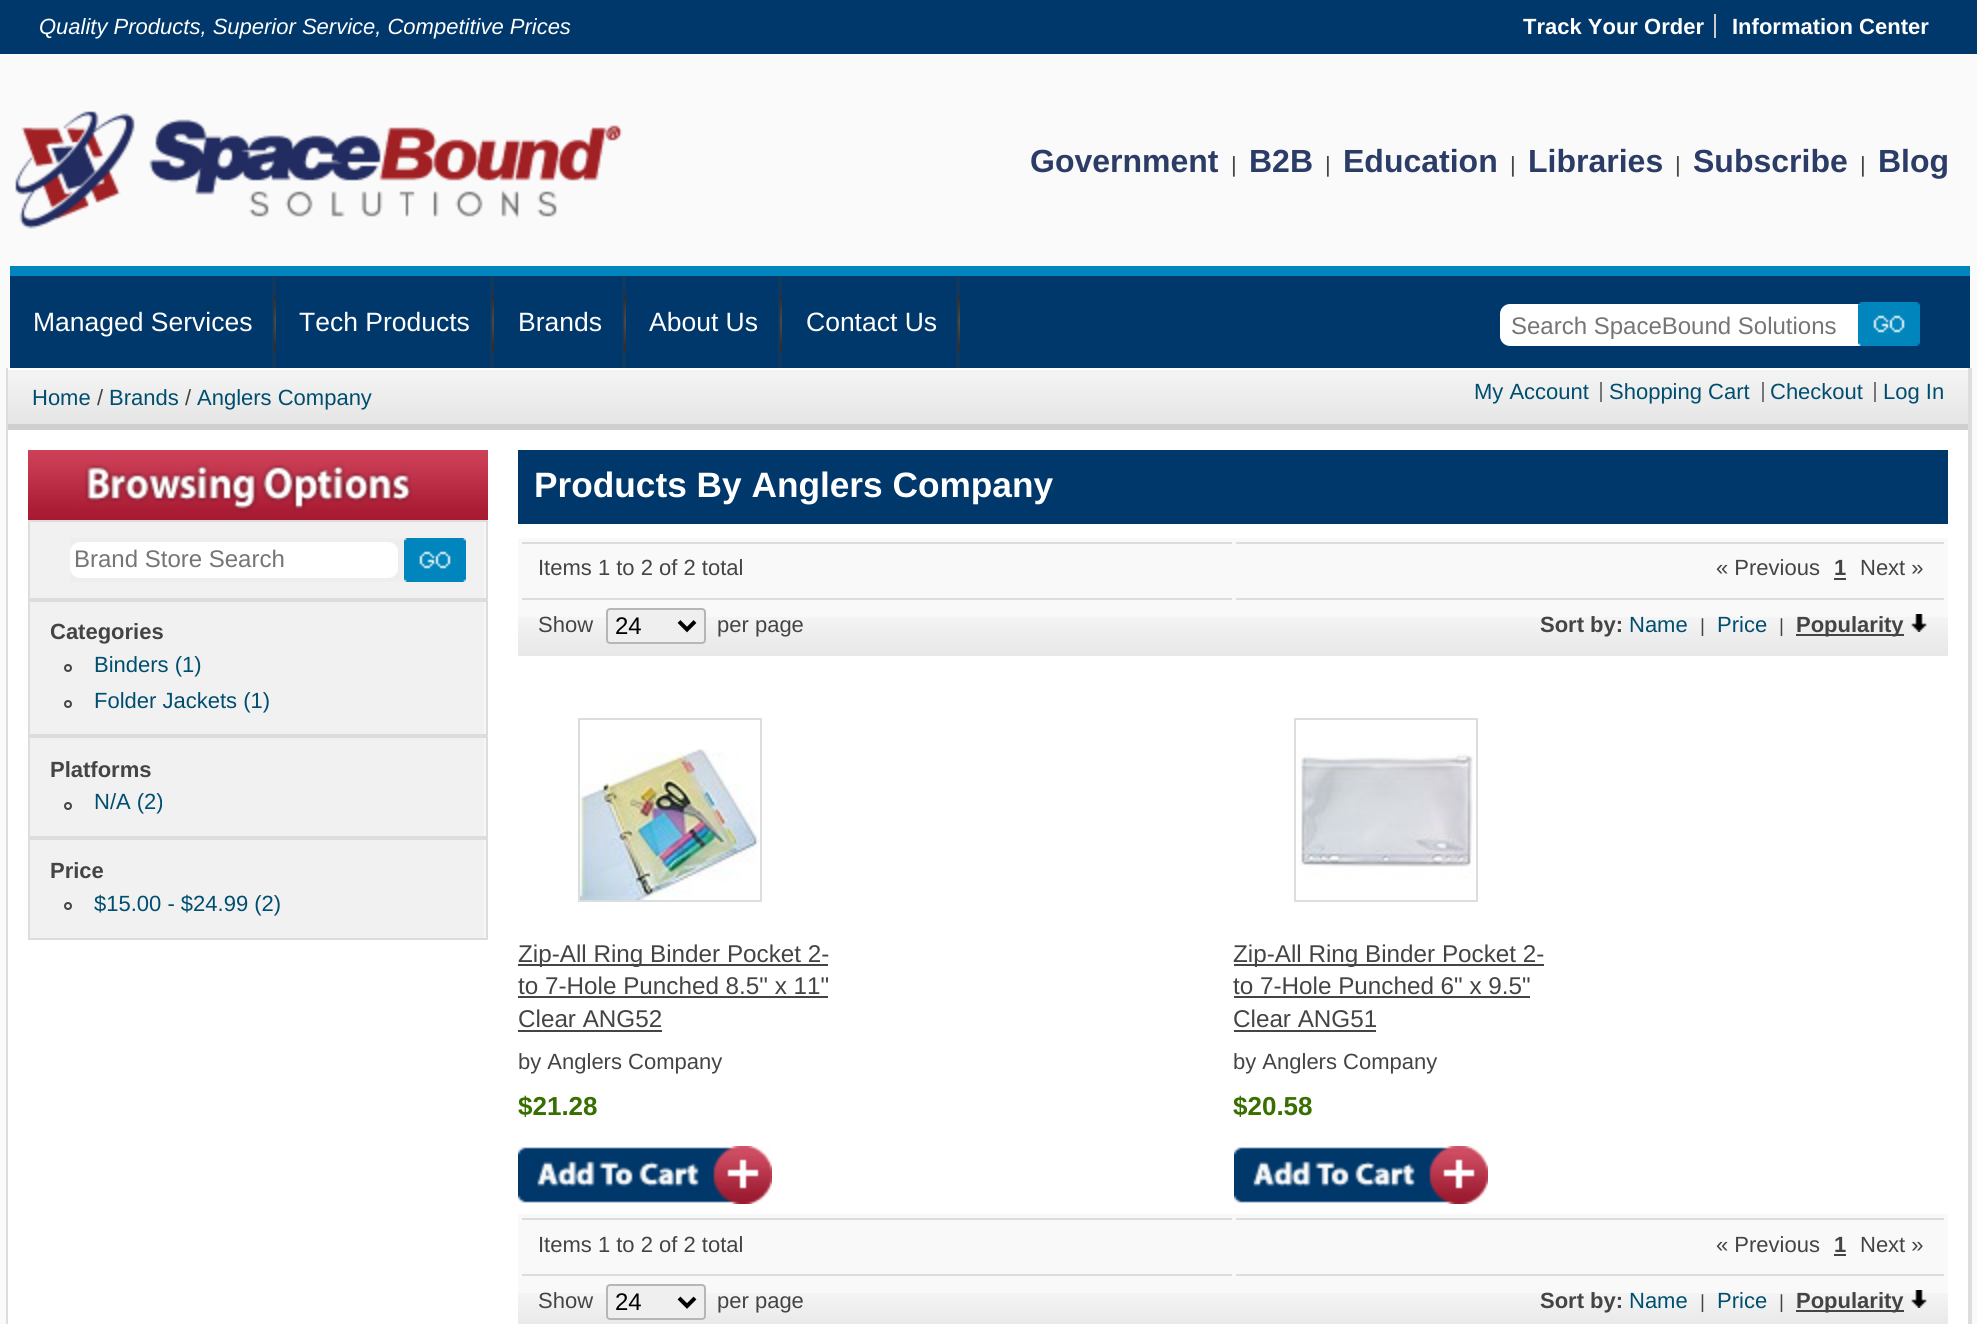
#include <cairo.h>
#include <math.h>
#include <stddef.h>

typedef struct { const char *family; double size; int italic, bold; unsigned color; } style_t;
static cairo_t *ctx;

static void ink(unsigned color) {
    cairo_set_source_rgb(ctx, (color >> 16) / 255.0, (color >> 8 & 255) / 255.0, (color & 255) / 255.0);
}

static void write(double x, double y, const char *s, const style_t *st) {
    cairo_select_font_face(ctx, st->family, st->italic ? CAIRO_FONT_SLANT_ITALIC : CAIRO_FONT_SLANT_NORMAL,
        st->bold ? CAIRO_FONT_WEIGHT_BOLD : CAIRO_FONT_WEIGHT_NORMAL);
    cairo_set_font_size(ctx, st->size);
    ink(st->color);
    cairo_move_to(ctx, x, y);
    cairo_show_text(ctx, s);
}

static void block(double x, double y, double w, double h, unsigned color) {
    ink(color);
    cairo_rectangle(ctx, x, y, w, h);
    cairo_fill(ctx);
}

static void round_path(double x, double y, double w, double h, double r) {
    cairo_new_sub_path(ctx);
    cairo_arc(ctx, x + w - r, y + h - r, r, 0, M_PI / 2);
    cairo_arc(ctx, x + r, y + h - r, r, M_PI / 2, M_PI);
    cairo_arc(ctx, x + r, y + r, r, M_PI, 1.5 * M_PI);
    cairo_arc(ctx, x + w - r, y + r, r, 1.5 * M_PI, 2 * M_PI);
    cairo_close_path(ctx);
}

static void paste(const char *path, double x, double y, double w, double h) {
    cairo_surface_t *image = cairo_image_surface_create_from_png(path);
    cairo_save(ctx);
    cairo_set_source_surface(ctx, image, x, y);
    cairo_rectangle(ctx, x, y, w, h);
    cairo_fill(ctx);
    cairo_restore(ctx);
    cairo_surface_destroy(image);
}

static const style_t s1 = {"Liberation Sans", 22, 1, 0, 0xffffff};
static const style_t s2 = {"Liberation Sans", 22, 0, 1, 0xffffff};
static const style_t s3 = {"Liberation Sans", 32, 0, 1, 0x2b3c67};
static const style_t s4 = {"Liberation Sans", 22, 0, 0, 0x444444};
static const style_t s5 = {"Liberation Sans", 26.5, 0, 0, 0xffffff};
static const style_t s6 = {"Liberation Sans", 24, 0, 0, 0x757575};
static const style_t s7 = {"Liberation Sans", 22, 0, 0, 0x004e6f};
static const style_t s8 = {"Liberation Sans", 22, 0, 1, 0x444444};
static const style_t s9 = {"Liberation Sans", 35.25, 0, 1, 0xffffff};
static const style_t s10 = {"Liberation Sans", 24, 0, 0, 0x000000};
static const style_t s11 = {"Liberation Sans", 19, 0, 0, 0x444444};
static const style_t s12 = {"Liberation Sans", 24.25, 0, 0, 0x444444};
static const style_t s13 = {"Liberation Sans", 26, 0, 1, 0x396f00};

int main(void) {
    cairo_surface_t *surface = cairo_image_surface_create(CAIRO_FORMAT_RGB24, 1977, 1324);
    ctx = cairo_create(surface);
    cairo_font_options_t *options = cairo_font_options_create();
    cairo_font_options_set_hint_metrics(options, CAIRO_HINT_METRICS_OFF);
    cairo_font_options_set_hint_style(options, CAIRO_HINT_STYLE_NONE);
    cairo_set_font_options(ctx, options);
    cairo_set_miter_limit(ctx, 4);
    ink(0xfafafa);
    cairo_paint(ctx);
    block(0, 0, 1977, 54, 0x00386b);
    write(39, 34, "Quality Products, Superior Service, Competitive Prices", &s1);
    write(1523, 34, "Track Your Order", &s2);
    block(1714, 14, 2, 24, 0xcccccc);
    write(1732, 34, "Information Center", &s2);
    paste("pic1.png", 15, 111, 608, 118);
    write(1030, 172, "Government", &s3);
    write(1231, 172, "|", &s4);
    write(1249, 172, "B2B", &s3);
    write(1325, 172, "|", &s4);
    write(1343, 172, "Education", &s3);
    write(1510, 172, "|", &s4);
    write(1528, 172, "Libraries", &s3);
    write(1675, 172, "|", &s4);
    write(1693, 172, "Subscribe", &s3);
    write(1860, 172, "|", &s4);
    write(1878, 172, "Blog", &s3);
    block(10, 276, 1960, 92, 0x00386b);
    block(10, 266, 1960, 10, 0x0085bc);
    paste("pic2.png", 272, 276, 4, 92);
    write(33, 331, "Managed Services", &s5);
    paste("pic2.png", 490, 276, 4, 92);
    write(299, 331, "Tech Products", &s5);
    paste("pic2.png", 622, 276, 4, 92);
    write(518, 331, "Brands", &s5);
    paste("pic2.png", 778, 276, 4, 92);
    write(649, 331, "About Us", &s5);
    paste("pic2.png", 956, 276, 4, 92);
    write(806, 331, "Contact Us", &s5);
    round_path(1500, 304, 370, 42, 10);
    cairo_fill(ctx);
    write(1511, 334, "Search SpaceBound Solutions", &s6);
    paste("pic3.png", 1858, 302, 62, 44);
    block(8, 368, 1960, 956, 0xffffff);
    block(1968, 368, 4, 956, 0xdddddd);
    block(6, 368, 2, 956, 0xdddddd);
    paste("pic4.png", 8, 370, 1960, 54);
    block(8, 424, 1960, 6, 0xcfcfcf);
    write(32, 405, "Home", &s7);
    write(97, 405, "/", &s4);
    write(109, 405, "Brands", &s7);
    write(185, 405, "/", &s4);
    write(197, 405, "Anglers Company", &s7);
    write(1474, 399, "My Account", &s7);
    block(1600, 382, 2, 20, 0x777777);
    write(1609, 399, "Shopping Cart", &s7);
    block(1762, 382, 2, 20, 0x777777);
    write(1770, 399, "Checkout", &s7);
    block(1874, 382, 2, 20, 0x777777);
    write(1883, 399, "Log In", &s7);
    paste("pic5.png", 28, 450, 460, 70);
    block(30, 522, 454, 76, 0xf1f1f1);
    block(484, 520, 2, 420, 0xf7f7f7);
    cairo_rectangle(ctx, 29, 521, 458, 78);
    ink(0xdddddd);
    cairo_stroke(ctx);
    block(70, 538, 396, 44, 0xeeeeee);
    ink(0xffffff);
    round_path(70, 542, 328, 36, 10);
    cairo_fill(ctx);
    write(74, 567, "Brand Store Search", &s6);
    paste("pic6.png", 404, 538, 62, 44);
    block(30, 602, 454, 132, 0xf1f1f1);
    cairo_rectangle(ctx, 29, 601, 458, 134);
    ink(0xdddddd);
    cairo_stroke(ctx);
    write(50, 639, "Categories", &s8);
    cairo_new_path(ctx);
    cairo_arc(ctx, 68, 668, 3, 0, 2 * M_PI);
    cairo_stroke(ctx);
    write(94, 672, "Binders (1)", &s7);
    cairo_new_path(ctx);
    cairo_arc(ctx, 68, 704, 3, 0, 2 * M_PI);
    ink(0x444444);
    cairo_stroke(ctx);
    write(94, 708, "Folder Jackets (1)", &s7);
    block(30, 738, 454, 98, 0xf1f1f1);
    cairo_rectangle(ctx, 29, 737, 458, 100);
    ink(0xdddddd);
    cairo_stroke(ctx);
    write(50, 777, "Platforms", &s8);
    cairo_new_path(ctx);
    cairo_arc(ctx, 68, 806, 3, 0, 2 * M_PI);
    cairo_stroke(ctx);
    write(94, 809, "N/A (2)", &s7);
    block(30, 840, 454, 98, 0xf1f1f1);
    cairo_rectangle(ctx, 29, 839, 458, 100);
    ink(0xdddddd);
    cairo_stroke(ctx);
    write(50, 878, "Price", &s8);
    cairo_new_path(ctx);
    cairo_arc(ctx, 68, 906, 3, 0, 2 * M_PI);
    cairo_stroke(ctx);
    write(94, 911, "$15.00 - $24.99 (2)", &s7);
    block(518, 450, 1430, 74, 0x00386b);
    write(534, 497, "Products By Anglers Company", &s9);
    block(518, 538, 1430, 79, 0xf9f9f9);
    paste("pic7.png", 518, 617, 1430, 39);
    block(522, 542, 710, 2, 0xdddddd);
    write(538, 575, "Items 1 to 2 of 2 total", &s4);
    block(1236, 542, 708, 2, 0xdddddd);
    write(1716, 575, "« Previous", &s4);
    write(1834, 575, "1", &s8);
    block(1834, 578, 12, 2, 0x444444);
    write(1860, 575, "Next »", &s4);
    block(522, 598, 710, 2, 0xdddddd);
    write(538, 632, "Show", &s4);
    ink(0xefefef);
    round_path(607, 609, 98, 34, 3);
    cairo_fill_preserve(ctx);
    ink(0xb6b6b6);
    cairo_stroke(ctx);
    cairo_new_path(ctx);
    cairo_move_to(ctx, 679, 621.5);
    cairo_line_to(ctx, 687, 629.5);
    cairo_line_to(ctx, 695, 621.5);
    ink(0x000000);
    cairo_set_line_width(ctx, 4);
    cairo_stroke(ctx);
    write(615, 634, "24", &s10);
    write(717, 632, "per page", &s4);
    block(1236, 598, 708, 2, 0xdddddd);
    write(1540, 632, "Sort by:", &s8);
    write(1629, 632, "Name", &s7);
    write(1700, 632, "|", &s11);
    write(1717, 632, "Price", &s7);
    write(1779, 632, "|", &s11);
    block(1796, 634, 108, 2, 0x444444);
    write(1796, 632, "Popularity", &s8);
    paste("pic8.png", 1911, 614, 16, 18);
    cairo_rectangle(ctx, 579, 719, 182, 182);
    ink(0xdddddd);
    cairo_set_line_width(ctx, 2);
    cairo_stroke(ctx);
    paste("pic9.png", 580, 749, 180, 151);
    block(518, 964, 310, 2, 0x444444);
    write(518, 962, "Zip-All Ring Binder Pocket 2-", &s12);
    write(518, 994, "to 7-Hole Punched 8.5\" x 11\"", &s12);
    block(518, 996, 310, 2, 0x444444);
    write(518, 1027, "Clear ANG52", &s12);
    block(518, 1030, 144, 2, 0x444444);
    write(518, 1069, "by Anglers Company", &s4);
    write(518, 1115, "$21.28", &s13);
    cairo_rectangle(ctx, 1295, 719, 182, 182);
    ink(0xdddddd);
    cairo_stroke(ctx);
    paste("pic10.png", 1298, 753, 175, 126);
    block(1234, 964, 310, 2, 0x444444);
    write(1233, 962, "Zip-All Ring Binder Pocket 2-", &s12);
    write(1233, 994, "to 7-Hole Punched 6\" x 9.5\"", &s12);
    block(1234, 996, 296, 2, 0x444444);
    write(1233, 1027, "Clear ANG51", &s12);
    block(1234, 1030, 142, 2, 0x444444);
    write(1233, 1069, "by Anglers Company", &s4);
    write(1233, 1115, "$20.58", &s13);
    paste("pic11.png", 518, 1146, 254, 58);
    paste("pic11.png", 1234, 1146, 254, 58);
    block(518, 1214, 1430, 79, 0xf9f9f9);
    paste("pic12.png", 518, 1293, 1430, 31);
    block(522, 1218, 710, 2, 0xdddddd);
    write(538, 1252, "Items 1 to 2 of 2 total", &s4);
    block(1236, 1218, 708, 2, 0xdddddd);
    write(1716, 1252, "« Previous", &s4);
    write(1834, 1252, "1", &s8);
    block(1834, 1254, 12, 2, 0x444444);
    write(1860, 1252, "Next »", &s4);
    block(522, 1274, 710, 2, 0xdddddd);
    write(538, 1308, "Show", &s4);
    ink(0xefefef);
    round_path(607, 1285, 98, 34, 3);
    cairo_fill_preserve(ctx);
    ink(0xb6b6b6);
    cairo_stroke(ctx);
    cairo_new_path(ctx);
    cairo_move_to(ctx, 679, 1298);
    cairo_line_to(ctx, 687, 1306);
    cairo_line_to(ctx, 695, 1298);
    ink(0x000000);
    cairo_set_line_width(ctx, 4);
    cairo_stroke(ctx);
    write(615, 1310, "24", &s10);
    write(717, 1308, "per page", &s4);
    block(1236, 1274, 708, 2, 0xdddddd);
    write(1540, 1308, "Sort by:", &s8);
    write(1629, 1308, "Name", &s7);
    write(1700, 1308, "|", &s11);
    write(1717, 1308, "Price", &s7);
    write(1779, 1308, "|", &s11);
    block(1796, 1310, 108, 2, 0x444444);
    write(1796, 1308, "Popularity", &s8);
    paste("pic8.png", 1911, 1290, 16, 18);
    cairo_surface_write_to_png(surface, "screenshot.png");
    cairo_font_options_destroy(options);
    cairo_destroy(ctx);
    cairo_surface_destroy(surface);
    return 0;
}
